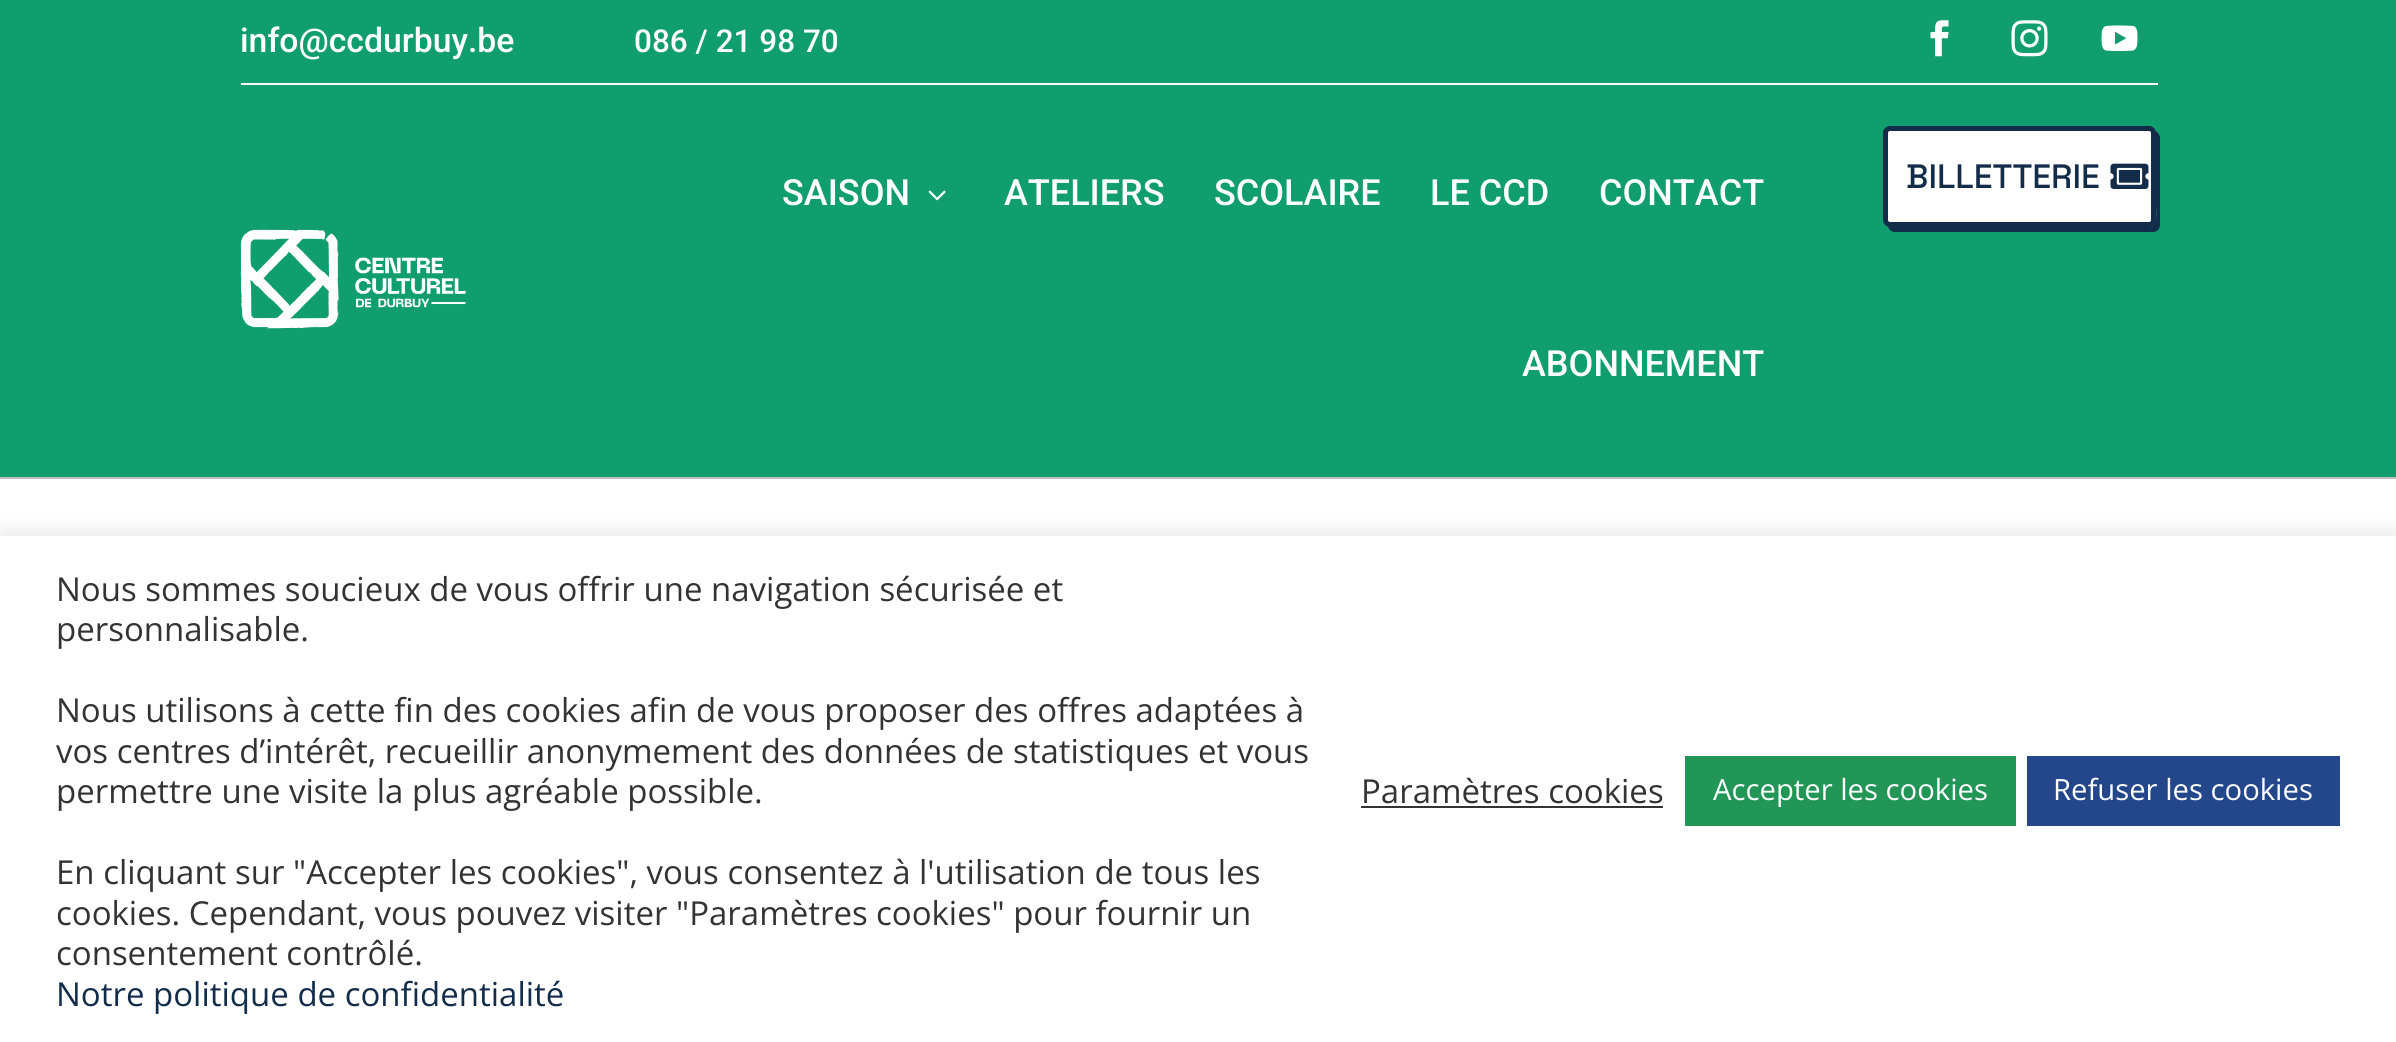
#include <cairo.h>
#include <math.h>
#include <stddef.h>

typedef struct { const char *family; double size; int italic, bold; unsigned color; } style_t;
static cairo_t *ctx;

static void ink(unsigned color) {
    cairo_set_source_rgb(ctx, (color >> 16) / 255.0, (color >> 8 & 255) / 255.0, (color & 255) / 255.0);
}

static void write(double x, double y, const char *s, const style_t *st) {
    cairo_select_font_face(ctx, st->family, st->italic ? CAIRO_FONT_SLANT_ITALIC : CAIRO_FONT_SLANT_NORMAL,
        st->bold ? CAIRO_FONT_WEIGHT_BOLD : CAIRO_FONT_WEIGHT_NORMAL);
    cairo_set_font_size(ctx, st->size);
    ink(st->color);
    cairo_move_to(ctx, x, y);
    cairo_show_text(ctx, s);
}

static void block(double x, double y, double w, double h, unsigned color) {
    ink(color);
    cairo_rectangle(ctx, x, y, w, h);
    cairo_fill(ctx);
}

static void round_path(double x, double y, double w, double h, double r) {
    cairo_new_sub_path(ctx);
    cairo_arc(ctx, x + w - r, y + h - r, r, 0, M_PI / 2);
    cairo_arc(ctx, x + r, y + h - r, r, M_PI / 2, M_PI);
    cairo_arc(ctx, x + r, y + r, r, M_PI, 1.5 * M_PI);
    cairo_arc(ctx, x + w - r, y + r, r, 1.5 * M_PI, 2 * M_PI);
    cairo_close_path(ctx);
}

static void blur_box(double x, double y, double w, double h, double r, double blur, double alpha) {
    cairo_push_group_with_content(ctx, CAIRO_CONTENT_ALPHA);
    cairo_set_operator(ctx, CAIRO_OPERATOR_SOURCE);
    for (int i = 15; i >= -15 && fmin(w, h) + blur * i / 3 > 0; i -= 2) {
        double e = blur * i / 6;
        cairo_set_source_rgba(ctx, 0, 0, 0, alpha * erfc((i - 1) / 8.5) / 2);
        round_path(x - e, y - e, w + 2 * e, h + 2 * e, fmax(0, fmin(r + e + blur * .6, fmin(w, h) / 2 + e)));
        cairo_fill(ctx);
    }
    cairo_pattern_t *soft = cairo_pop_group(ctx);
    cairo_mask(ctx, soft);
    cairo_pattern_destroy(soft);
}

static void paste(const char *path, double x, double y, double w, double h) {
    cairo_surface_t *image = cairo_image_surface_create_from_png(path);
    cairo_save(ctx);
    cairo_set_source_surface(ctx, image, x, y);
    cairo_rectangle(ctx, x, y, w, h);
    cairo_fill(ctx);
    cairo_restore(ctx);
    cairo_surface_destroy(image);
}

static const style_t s1 = {"Roboto Medium", 33.75, 0, 0, 0xffffff};
static const style_t s2 = {"Roboto Medium", 31.5, 0, 0, 0xffffff};
static const style_t s3 = {"Space Grotesk Light", 33.75, 0, 0, 0x132c4a};
static const style_t s4 = {"Roboto Medium", 36, 0, 0, 0xffffff};
static const style_t s5 = {"Open Sans", 33, 0, 0, 0x333333};
static const style_t s6 = {"Open Sans", 33, 0, 0, 0x132c4a};
static const style_t s7 = {"Open Sans", 29.25, 0, 0, 0xffffff};

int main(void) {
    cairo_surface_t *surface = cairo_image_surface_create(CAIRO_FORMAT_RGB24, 2396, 1042);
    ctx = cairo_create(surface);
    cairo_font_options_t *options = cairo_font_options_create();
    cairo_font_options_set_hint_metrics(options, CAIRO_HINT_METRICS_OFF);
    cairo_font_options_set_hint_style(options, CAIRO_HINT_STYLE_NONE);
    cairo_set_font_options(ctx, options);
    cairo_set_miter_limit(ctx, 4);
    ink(0xffffff);
    cairo_paint(ctx);
    block(0, 0, 2396, 477, 0x109e6e);
    block(241, 83, 1917, 2, 0xf9f9f9);
    write(240, 52, "info@ccdurbuy.be", &s1);
    write(634, 52, "086 / 21 98 70", &s2);
    paste("pic1.png", 1930, 20, 19, 37);
    paste("pic2.png", 2011, 20, 37, 37);
    paste("pic3.png", 2101, 25, 37, 27);
    block(0, 477, 2396, 2, 0xbfbfbf);
    ink(0x132c4a);
    cairo_new_path(ctx);
    cairo_move_to(ctx, 1888, 227);
    cairo_curve_to(ctx, 1889, 230, 1892, 232, 1895, 232);
    cairo_line_to(ctx, 2153, 232);
    cairo_curve_to(ctx, 2157, 232, 2160, 229, 2160, 225);
    cairo_line_to(ctx, 2160, 138);
    cairo_curve_to(ctx, 2160, 135, 2158, 132, 2155, 131);
    cairo_line_to(ctx, 2156, 206);
    cairo_curve_to(ctx, 2156, 210, 2159, 227, 2149, 227);
    cairo_close_path(ctx);
    cairo_fill(ctx);
    ink(0xffffff);
    round_path(1885.5, 128.5, 268, 96, 4.5);
    cairo_fill_preserve(ctx);
    ink(0x132c4a);
    cairo_set_line_width(ctx, 5);
    cairo_stroke(ctx);
    write(1906, 188, "BILLETTERIE", &s3);
    paste("pic4.png", 2110, 163, 39, 26);
    paste("pic5.png", 240, 229, 226, 100);
    write(782, 205, "SAISON", &s4);
    paste("pic6.png", 928, 190, 18, 11);
    write(1004, 205, "ATELIERS", &s4);
    write(1214, 205, "SCOLAIRE", &s4);
    write(1430, 205, "LE CCD", &s4);
    write(1599, 205, "CONTACT", &s4);
    write(1522, 376, "ABONNEMENT", &s4);
    ink(0xacabab);
    blur_box(0, 533, 2396, 509, 0, 11, 0.3);
    block(0, 536, 2396, 506, 0xffffff);
    write(56, 601, "Nous sommes soucieux de vous offrir une navigation sécurisée et", &s5);
    write(56, 641, "personnalisable.", &s5);
    write(56, 722, "Nous utilisons à cette fin des cookies afin de vous proposer des offres adaptées à", &s5);
    write(56, 763, "vos centres d’intérêt, recueillir anonymement des données de statistiques et vous", &s5);
    write(56, 803, "permettre une visite la plus agréable possible.", &s5);
    write(56, 884, "En cliquant sur \"Accepter les cookies\", vous consentez à l'utilisation de tous les", &s5);
    write(56, 925, "cookies. Cependant, vous pouvez visiter \"Paramètres", &s5);
    write(876, 925, "cookies\" pour fournir un", &s5);
    write(56, 965, "consentement contrôlé.", &s5);
    write(56, 1006, "Notre politique de confidentialité", &s6);
    write(1361, 803, "Paramètres cookies", &s5);
    block(1361, 806, 302, 2, 0x333333);
    block(1685, 756, 331, 70, 0x229656);
    write(1713, 800, "Accepter les cookies", &s7);
    block(2027, 756, 313, 70, 0x24478c);
    write(2053, 800, "Refuser les cookies", &s7);
    cairo_surface_write_to_png(surface, "screenshot.png");
    cairo_font_options_destroy(options);
    cairo_destroy(ctx);
    cairo_surface_destroy(surface);
    return 0;
}
